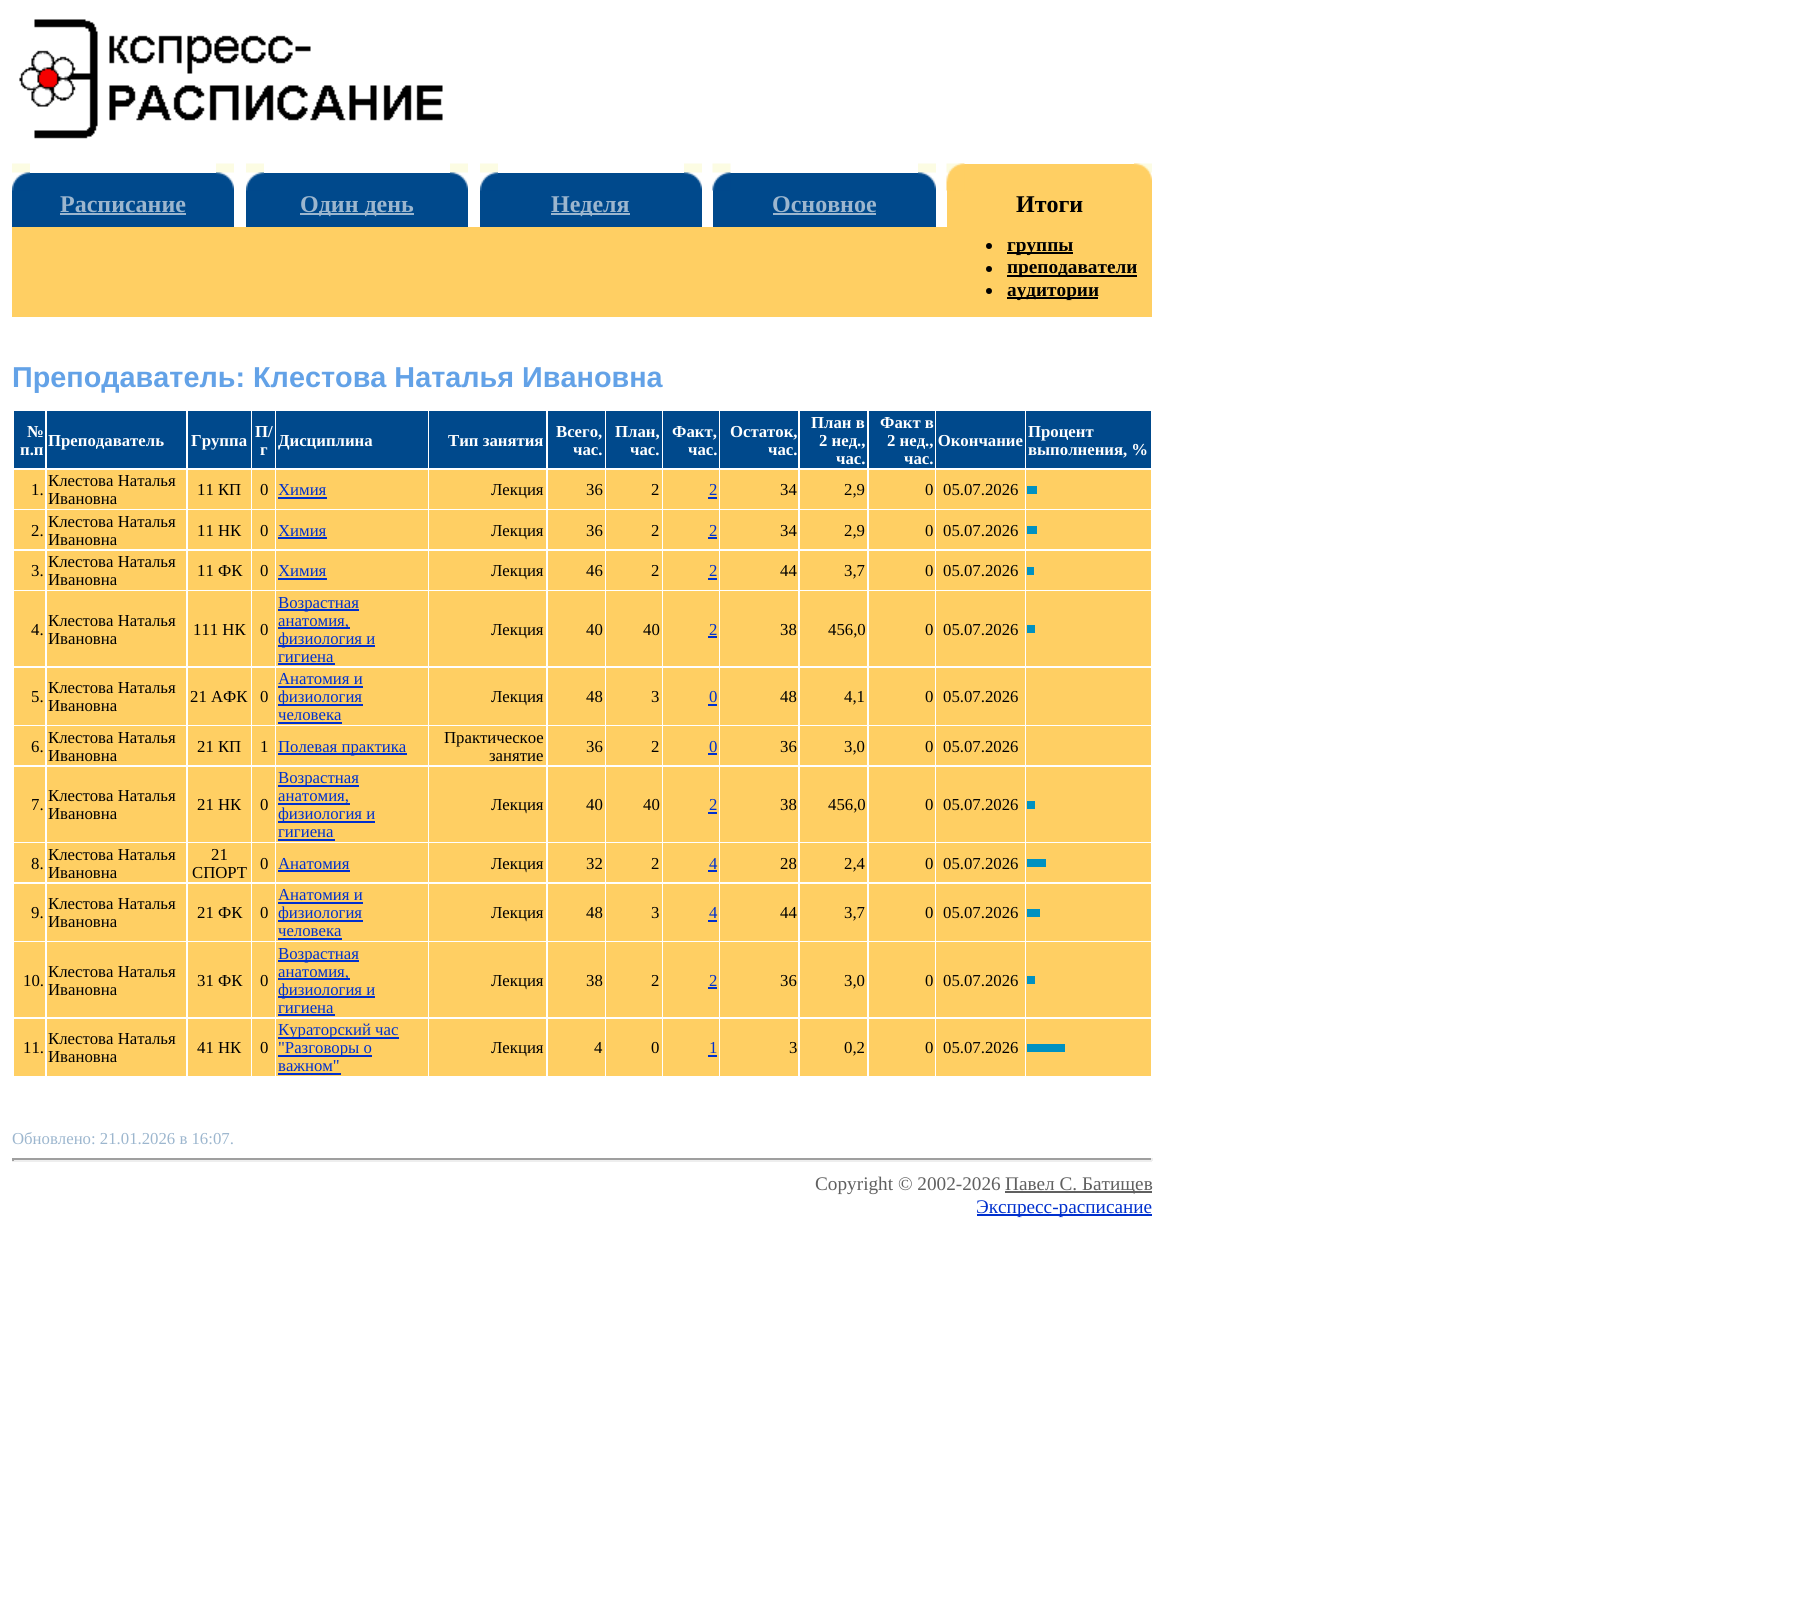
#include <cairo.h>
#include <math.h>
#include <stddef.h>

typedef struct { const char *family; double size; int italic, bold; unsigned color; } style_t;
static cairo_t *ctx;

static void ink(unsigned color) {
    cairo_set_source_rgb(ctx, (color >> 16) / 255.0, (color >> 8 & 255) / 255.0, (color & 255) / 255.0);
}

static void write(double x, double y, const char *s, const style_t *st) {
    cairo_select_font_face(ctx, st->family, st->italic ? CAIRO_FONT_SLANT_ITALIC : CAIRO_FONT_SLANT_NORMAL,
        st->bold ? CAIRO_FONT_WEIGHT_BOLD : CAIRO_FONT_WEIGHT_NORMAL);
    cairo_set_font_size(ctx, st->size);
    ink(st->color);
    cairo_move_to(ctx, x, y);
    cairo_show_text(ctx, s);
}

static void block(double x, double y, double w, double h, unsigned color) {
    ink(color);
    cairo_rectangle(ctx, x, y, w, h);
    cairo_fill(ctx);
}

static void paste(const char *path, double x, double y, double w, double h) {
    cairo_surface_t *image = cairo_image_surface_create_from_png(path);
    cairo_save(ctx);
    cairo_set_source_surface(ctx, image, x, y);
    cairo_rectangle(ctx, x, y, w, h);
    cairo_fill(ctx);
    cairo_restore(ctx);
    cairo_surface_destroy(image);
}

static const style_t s1 = {"Liberation Serif", 24, 0, 1, 0x9cb6ce};
static const style_t s2 = {"Liberation Serif", 24, 0, 1, 0x000000};
static const style_t s3 = {"Liberation Serif", 19.25, 0, 1, 0x000000};
static const style_t s4 = {"Liberation Sans", 28.8, 0, 1, 0x63a2e7};
static const style_t s5 = {"Liberation Serif", 16.75, 0, 1, 0xffffff};
static const style_t s6 = {"Liberation Serif", 16.75, 0, 0, 0x000000};
static const style_t s7 = {"Liberation Serif", 16.75, 0, 0, 0x0030ce};
static const style_t s8 = {"Liberation Serif", 16.75, 0, 0, 0x9cb6ce};
static const style_t s9 = {"Liberation Serif", 19.25, 0, 0, 0x606060};
static const style_t s10 = {"Liberation Serif", 19.25, 0, 0, 0x0030ce};

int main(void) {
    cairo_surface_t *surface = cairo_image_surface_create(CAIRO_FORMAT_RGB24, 1810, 1621);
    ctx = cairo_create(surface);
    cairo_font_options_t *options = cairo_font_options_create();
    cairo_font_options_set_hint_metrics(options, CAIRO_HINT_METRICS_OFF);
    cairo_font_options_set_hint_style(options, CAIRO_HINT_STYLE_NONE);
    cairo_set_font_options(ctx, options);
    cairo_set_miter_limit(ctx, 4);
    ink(0xffffff);
    cairo_paint(ctx);
    paste("pic1.png", 19, 19, 424, 120);
    block(12, 173, 222, 54, 0x00498c);
    paste("pic2.png", 12, 163, 18, 28);
    paste("pic3.png", 216, 163, 18, 27);
    block(246, 173, 222, 54, 0x00498c);
    paste("pic2.png", 246, 163, 18, 28);
    paste("pic4.png", 450, 163, 18, 27);
    block(480, 173, 222, 54, 0x00498c);
    paste("pic5.png", 480, 163, 18, 28);
    paste("pic3.png", 684, 163, 18, 27);
    block(713, 173, 223, 54, 0x00498c);
    paste("pic6.png", 712, 163, 19, 28);
    paste("pic3.png", 918, 163, 18, 27);
    block(947, 164, 205, 63, 0xffcf63);
    paste("pic7.png", 946, 163, 19, 28);
    paste("pic8.png", 1134, 163, 18, 18);
    write(60, 212, "Расписание", &s1);
    block(60, 213, 126, 2, 0x9cb6ce);
    block(300, 213, 114, 2, 0x9cb6ce);
    write(300, 212, "Один день", &s1);
    block(551, 213, 79, 2, 0x9cb6ce);
    write(551, 212, "Неделя", &s1);
    write(772, 212, "Основное", &s1);
    block(773, 213, 103, 2, 0x9cb6ce);
    write(1016, 212, "Итоги", &s2);
    block(12, 227, 1140, 90, 0xffcf63);
    ink(0x000000);
    cairo_new_path(ctx);
    cairo_arc(ctx, 989, 246, 3, 0, 2 * M_PI);
    cairo_fill(ctx);
    block(1007, 252, 66, 2, 0x000000);
    write(1007, 251, "группы", &s3);
    cairo_new_path(ctx);
    cairo_arc(ctx, 989, 269, 3, 0, 2 * M_PI);
    cairo_fill(ctx);
    block(1007, 275, 130, 2, 0x000000);
    write(1007, 273, "преподаватели", &s3);
    cairo_new_path(ctx);
    cairo_arc(ctx, 989, 291, 3, 0, 2 * M_PI);
    cairo_fill(ctx);
    block(1007, 297, 91, 2, 0x000000);
    write(1007, 296, "аудитории", &s3);
    write(12, 387, "Преподаватель: Клестова Наталья Ивановна", &s4);
    block(800, 411, 67, 57, 0x00498c);
    write(811, 428, "План в", &s5);
    write(819, 446, "2 нед.,", &s5);
    write(836, 464, "час.", &s5);
    block(936, 411, 89, 57, 0x00498c);
    block(14, 411, 31, 57, 0x00498c);
    write(27, 437, "№", &s5);
    write(20, 455, "п.п", &s5);
    block(47, 411, 139, 57, 0x00498c);
    write(48, 446, "Преподаватель", &s5);
    block(188, 411, 63, 57, 0x00498c);
    write(191, 446, "Группа", &s5);
    block(252, 411, 23, 57, 0x00498c);
    write(255, 437, "П/", &s5);
    write(260, 455, "г", &s5);
    block(276, 411, 152, 57, 0x00498c);
    write(278, 446, "Дисциплина", &s5);
    block(429, 411, 117, 57, 0x00498c);
    write(448, 446, "Тип занятия", &s5);
    block(548, 411, 57, 57, 0x00498c);
    write(556, 437, "Всего,", &s5);
    write(573, 455, "час.", &s5);
    block(606, 411, 56, 57, 0x00498c);
    write(615, 437, "План,", &s5);
    write(630, 455, "час.", &s5);
    block(663, 411, 56, 57, 0x00498c);
    write(672, 437, "Факт,", &s5);
    write(688, 455, "час.", &s5);
    block(720, 411, 78, 57, 0x00498c);
    write(730, 437, "Остаток,", &s5);
    write(768, 455, "час.", &s5);
    block(869, 411, 66, 57, 0x00498c);
    write(880, 428, "Факт в", &s5);
    write(887, 446, "2 нед., Окончание", &s5);
    write(904, 464, "час.", &s5);
    block(1026, 411, 125, 57, 0x00498c);
    write(1028, 437, "Процент", &s5);
    write(1028, 455, "выполнения, %", &s5);
    block(14, 470, 31, 39, 0xffcf63);
    write(31, 495, "1.", &s6);
    block(47, 470, 139, 39, 0xffcf63);
    write(48, 486, "Клестова Наталья", &s6);
    write(48, 504, "Ивановна", &s6);
    block(188, 470, 63, 39, 0xffcf63);
    write(197, 495, "11 КП", &s6);
    block(252, 470, 23, 39, 0xffcf63);
    write(260, 495, "0", &s6);
    block(276, 470, 152, 39, 0xffcf63);
    write(278, 495, "Химия", &s7);
    block(278, 497, 49, 2, 0x0030ce);
    block(429, 470, 117, 39, 0xffcf63);
    write(491, 495, "Лекция", &s6);
    block(548, 470, 57, 39, 0xffcf63);
    write(586, 495, "36", &s6);
    block(606, 470, 56, 39, 0xffcf63);
    write(651, 495, "2", &s6);
    block(663, 470, 56, 39, 0xffcf63);
    write(709, 495, "2", &s7);
    block(708, 497, 9, 2, 0x0030ce);
    block(720, 470, 78, 39, 0xffcf63);
    write(780, 495, "34", &s6);
    block(800, 470, 67, 39, 0xffcf63);
    write(844, 495, "2,9", &s6);
    block(869, 470, 66, 39, 0xffcf63);
    write(925, 495, "0", &s6);
    block(936, 470, 89, 39, 0xffcf63);
    write(943, 495, "05.07.2026", &s6);
    block(1026, 470, 125, 39, 0xffcf63);
    block(1027, 486, 10, 8, 0x0091c1);
    block(14, 510, 31, 39, 0xffcf63);
    write(31, 536, "2.", &s6);
    block(47, 510, 139, 39, 0xffcf63);
    write(48, 527, "Клестова Наталья", &s6);
    write(48, 545, "Ивановна", &s6);
    block(188, 510, 63, 39, 0xffcf63);
    write(197, 536, "11 НК", &s6);
    block(252, 510, 23, 39, 0xffcf63);
    write(260, 536, "0", &s6);
    block(276, 510, 152, 39, 0xffcf63);
    write(278, 536, "Химия", &s7);
    block(278, 537, 49, 2, 0x0030ce);
    block(429, 510, 117, 39, 0xffcf63);
    write(491, 536, "Лекция", &s6);
    block(548, 510, 57, 39, 0xffcf63);
    write(586, 536, "36", &s6);
    block(606, 510, 56, 39, 0xffcf63);
    write(651, 536, "2", &s6);
    block(663, 510, 56, 39, 0xffcf63);
    write(709, 536, "2", &s7);
    block(708, 537, 9, 2, 0x0030ce);
    block(720, 510, 78, 39, 0xffcf63);
    write(780, 536, "34", &s6);
    block(800, 510, 67, 39, 0xffcf63);
    write(844, 536, "2,9", &s6);
    block(869, 510, 66, 39, 0xffcf63);
    write(925, 536, "0", &s6);
    block(936, 510, 89, 39, 0xffcf63);
    write(943, 536, "05.07.2026", &s6);
    block(1026, 510, 125, 39, 0xffcf63);
    block(1027, 526, 10, 8, 0x0091c1);
    block(14, 551, 31, 39, 0xffcf63);
    write(31, 576, "3.", &s6);
    block(47, 551, 139, 39, 0xffcf63);
    write(48, 567, "Клестова Наталья", &s6);
    write(48, 585, "Ивановна", &s6);
    block(188, 551, 63, 39, 0xffcf63);
    write(197, 576, "11 ФК", &s6);
    block(252, 551, 23, 39, 0xffcf63);
    write(260, 576, "0", &s6);
    block(276, 551, 152, 39, 0xffcf63);
    write(278, 576, "Химия", &s7);
    block(278, 578, 49, 2, 0x0030ce);
    block(429, 551, 117, 39, 0xffcf63);
    write(491, 576, "Лекция", &s6);
    block(548, 551, 57, 39, 0xffcf63);
    write(586, 576, "46", &s6);
    block(606, 551, 56, 39, 0xffcf63);
    write(651, 576, "2", &s6);
    block(663, 551, 56, 39, 0xffcf63);
    write(709, 576, "2", &s7);
    block(708, 578, 9, 2, 0x0030ce);
    block(720, 551, 78, 39, 0xffcf63);
    write(780, 576, "44", &s6);
    block(800, 551, 67, 39, 0xffcf63);
    write(844, 576, "3,7", &s6);
    block(869, 551, 66, 39, 0xffcf63);
    write(925, 576, "0", &s6);
    block(936, 551, 89, 39, 0xffcf63);
    write(943, 576, "05.07.2026", &s6);
    block(1026, 551, 125, 39, 0xffcf63);
    block(1027, 567, 7, 8, 0x0091c1);
    block(14, 591, 31, 75, 0xffcf63);
    write(31, 635, "4.", &s6);
    block(47, 591, 139, 75, 0xffcf63);
    write(48, 626, "Клестова Наталья", &s6);
    write(48, 644, "Ивановна", &s6);
    block(188, 591, 63, 75, 0xffcf63);
    write(193, 635, "111 НК", &s6);
    block(252, 591, 23, 75, 0xffcf63);
    write(260, 635, "0", &s6);
    block(276, 591, 152, 75, 0xffcf63);
    block(278, 609, 81, 2, 0x0030ce);
    write(278, 608, "Возрастная", &s7);
    block(278, 627, 72, 2, 0x0030ce);
    write(278, 626, "анатомия,", &s7);
    block(278, 645, 97, 2, 0x0030ce);
    write(278, 644, "физиология и", &s7);
    write(278, 662, "гигиена", &s7);
    block(278, 663, 57, 2, 0x0030ce);
    block(429, 591, 117, 75, 0xffcf63);
    write(491, 635, "Лекция", &s6);
    block(548, 591, 57, 75, 0xffcf63);
    write(586, 635, "40", &s6);
    block(606, 591, 56, 75, 0xffcf63);
    write(643, 635, "40", &s6);
    block(663, 591, 56, 75, 0xffcf63);
    write(709, 635, "2", &s7);
    block(708, 636, 9, 2, 0x0030ce);
    block(720, 591, 78, 75, 0xffcf63);
    write(780, 635, "38", &s6);
    block(800, 591, 67, 75, 0xffcf63);
    write(828, 635, "456,0", &s6);
    block(869, 591, 66, 75, 0xffcf63);
    write(925, 635, "0", &s6);
    block(936, 591, 89, 75, 0xffcf63);
    write(943, 635, "05.07.2026", &s6);
    block(1026, 591, 125, 75, 0xffcf63);
    block(1027, 625, 8, 8, 0x0091c1);
    block(14, 668, 31, 57, 0xffcf63);
    write(31, 702, "5.", &s6);
    block(47, 668, 139, 57, 0xffcf63);
    write(48, 693, "Клестова Наталья", &s6);
    write(48, 711, "Ивановна", &s6);
    block(188, 668, 63, 57, 0xffcf63);
    write(190, 702, "21 АФК", &s6);
    block(252, 668, 23, 57, 0xffcf63);
    write(260, 702, "0", &s6);
    block(276, 668, 152, 57, 0xffcf63);
    write(278, 684, "Анатомия и", &s7);
    block(278, 686, 85, 2, 0x0030ce);
    block(278, 704, 85, 2, 0x0030ce);
    write(278, 702, "физиология", &s7);
    write(278, 720, "человека", &s7);
    block(278, 722, 64, 2, 0x0030ce);
    block(429, 668, 117, 57, 0xffcf63);
    write(491, 702, "Лекция", &s6);
    block(548, 668, 57, 57, 0xffcf63);
    write(586, 702, "48", &s6);
    block(606, 668, 56, 57, 0xffcf63);
    write(651, 702, "3", &s6);
    block(663, 668, 56, 57, 0xffcf63);
    write(709, 702, "0", &s7);
    block(708, 704, 9, 2, 0x0030ce);
    block(720, 668, 78, 57, 0xffcf63);
    write(780, 702, "48", &s6);
    block(800, 668, 67, 57, 0xffcf63);
    write(844, 702, "4,1", &s6);
    block(869, 668, 66, 57, 0xffcf63);
    write(925, 702, "0", &s6);
    block(936, 668, 89, 57, 0xffcf63);
    write(943, 702, "05.07.2026", &s6);
    block(1026, 668, 125, 57, 0xffcf63);
    block(14, 726, 31, 39, 0xffcf63);
    write(31, 752, "6.", &s6);
    block(47, 726, 139, 39, 0xffcf63);
    write(48, 743, "Клестова Наталья", &s6);
    write(48, 761, "Ивановна", &s6);
    block(188, 726, 63, 39, 0xffcf63);
    write(197, 752, "21 КП", &s6);
    block(252, 726, 23, 39, 0xffcf63);
    write(260, 752, "1", &s6);
    block(276, 726, 152, 39, 0xffcf63);
    block(278, 753, 129, 2, 0x0030ce);
    write(278, 752, "Полевая практика", &s7);
    block(429, 726, 117, 39, 0xffcf63);
    write(444, 743, "Практическое", &s6);
    write(489, 761, "занятие", &s6);
    block(548, 726, 57, 39, 0xffcf63);
    write(586, 752, "36", &s6);
    block(606, 726, 56, 39, 0xffcf63);
    write(651, 752, "2", &s6);
    block(663, 726, 56, 39, 0xffcf63);
    write(709, 752, "0", &s7);
    block(708, 753, 9, 2, 0x0030ce);
    block(720, 726, 78, 39, 0xffcf63);
    write(780, 752, "36", &s6);
    block(800, 726, 67, 39, 0xffcf63);
    write(844, 752, "3,0", &s6);
    block(869, 726, 66, 39, 0xffcf63);
    write(925, 752, "0", &s6);
    block(936, 726, 89, 39, 0xffcf63);
    write(943, 752, "05.07.2026", &s6);
    block(1026, 726, 125, 39, 0xffcf63);
    block(14, 767, 31, 75, 0xffcf63);
    write(31, 810, "7.", &s6);
    block(47, 767, 139, 75, 0xffcf63);
    write(48, 801, "Клестова Наталья", &s6);
    write(48, 819, "Ивановна", &s6);
    block(188, 767, 63, 75, 0xffcf63);
    write(197, 810, "21 НК", &s6);
    block(252, 767, 23, 75, 0xffcf63);
    write(260, 810, "0", &s6);
    block(276, 767, 152, 75, 0xffcf63);
    block(278, 785, 81, 2, 0x0030ce);
    write(278, 783, "Возрастная", &s7);
    block(278, 803, 72, 2, 0x0030ce);
    write(278, 801, "анатомия,", &s7);
    block(278, 821, 97, 2, 0x0030ce);
    write(278, 819, "физиология и", &s7);
    write(278, 837, "гигиена", &s7);
    block(278, 839, 57, 2, 0x0030ce);
    block(429, 767, 117, 75, 0xffcf63);
    write(491, 810, "Лекция", &s6);
    block(548, 767, 57, 75, 0xffcf63);
    write(586, 810, "40", &s6);
    block(606, 767, 56, 75, 0xffcf63);
    write(643, 810, "40", &s6);
    block(663, 767, 56, 75, 0xffcf63);
    write(709, 810, "2", &s7);
    block(708, 812, 9, 2, 0x0030ce);
    block(720, 767, 78, 75, 0xffcf63);
    write(780, 810, "38", &s6);
    block(800, 767, 67, 75, 0xffcf63);
    write(828, 810, "456,0", &s6);
    block(869, 767, 66, 75, 0xffcf63);
    write(925, 810, "0", &s6);
    block(936, 767, 89, 75, 0xffcf63);
    write(943, 810, "05.07.2026", &s6);
    block(1026, 767, 125, 75, 0xffcf63);
    block(1027, 801, 8, 8, 0x0091c1);
    block(14, 843, 31, 39, 0xffcf63);
    write(31, 869, "8.", &s6);
    block(47, 843, 139, 39, 0xffcf63);
    write(48, 860, "Клестова Наталья", &s6);
    write(48, 878, "Ивановна", &s6);
    block(188, 843, 63, 39, 0xffcf63);
    write(211, 860, "21", &s6);
    write(192, 878, "СПОРТ", &s6);
    block(252, 843, 23, 39, 0xffcf63);
    write(260, 869, "0", &s6);
    block(276, 843, 152, 39, 0xffcf63);
    write(278, 869, "Анатомия", &s7);
    block(278, 870, 72, 2, 0x0030ce);
    block(429, 843, 117, 39, 0xffcf63);
    write(491, 869, "Лекция", &s6);
    block(548, 843, 57, 39, 0xffcf63);
    write(586, 869, "32", &s6);
    block(606, 843, 56, 39, 0xffcf63);
    write(651, 869, "2", &s6);
    block(663, 843, 56, 39, 0xffcf63);
    write(709, 869, "4", &s7);
    block(708, 870, 9, 2, 0x0030ce);
    block(720, 843, 78, 39, 0xffcf63);
    write(780, 869, "28", &s6);
    block(800, 843, 67, 39, 0xffcf63);
    write(844, 869, "2,4", &s6);
    block(869, 843, 66, 39, 0xffcf63);
    write(925, 869, "0", &s6);
    block(936, 843, 89, 39, 0xffcf63);
    write(943, 869, "05.07.2026", &s6);
    block(1026, 843, 125, 39, 0xffcf63);
    block(1027, 859, 19, 8, 0x0091c1);
    block(14, 884, 31, 57, 0xffcf63);
    write(31, 918, "9.", &s6);
    block(47, 884, 139, 57, 0xffcf63);
    write(48, 909, "Клестова Наталья", &s6);
    write(48, 927, "Ивановна", &s6);
    block(188, 884, 63, 57, 0xffcf63);
    write(197, 918, "21 ФК", &s6);
    block(252, 884, 23, 57, 0xffcf63);
    write(260, 918, "0", &s6);
    block(276, 884, 152, 57, 0xffcf63);
    write(278, 900, "Анатомия и", &s7);
    block(278, 902, 85, 2, 0x0030ce);
    block(278, 920, 85, 2, 0x0030ce);
    write(278, 918, "физиология", &s7);
    write(278, 936, "человека", &s7);
    block(278, 938, 64, 2, 0x0030ce);
    block(429, 884, 117, 57, 0xffcf63);
    write(491, 918, "Лекция", &s6);
    block(548, 884, 57, 57, 0xffcf63);
    write(586, 918, "48", &s6);
    block(606, 884, 56, 57, 0xffcf63);
    write(651, 918, "3", &s6);
    block(663, 884, 56, 57, 0xffcf63);
    write(709, 918, "4", &s7);
    block(708, 920, 9, 2, 0x0030ce);
    block(720, 884, 78, 57, 0xffcf63);
    write(780, 918, "44", &s6);
    block(800, 884, 67, 57, 0xffcf63);
    write(844, 918, "3,7", &s6);
    block(869, 884, 66, 57, 0xffcf63);
    write(925, 918, "0", &s6);
    block(936, 884, 89, 57, 0xffcf63);
    write(943, 918, "05.07.2026", &s6);
    block(1026, 884, 125, 57, 0xffcf63);
    block(1027, 909, 13, 8, 0x0091c1);
    block(14, 942, 31, 75, 0xffcf63);
    write(23, 986, "10.", &s6);
    block(47, 942, 139, 75, 0xffcf63);
    write(48, 977, "Клестова Наталья", &s6);
    write(48, 995, "Ивановна", &s6);
    block(188, 942, 63, 75, 0xffcf63);
    write(197, 986, "31 ФК", &s6);
    block(252, 942, 23, 75, 0xffcf63);
    write(260, 986, "0", &s6);
    block(276, 942, 152, 75, 0xffcf63);
    block(278, 960, 81, 2, 0x0030ce);
    write(278, 959, "Возрастная", &s7);
    block(278, 978, 72, 2, 0x0030ce);
    write(278, 977, "анатомия,", &s7);
    block(278, 996, 97, 2, 0x0030ce);
    write(278, 995, "физиология и", &s7);
    write(278, 1013, "гигиена", &s7);
    block(278, 1014, 57, 2, 0x0030ce);
    block(429, 942, 117, 75, 0xffcf63);
    write(491, 986, "Лекция", &s6);
    block(548, 942, 57, 75, 0xffcf63);
    write(586, 986, "38", &s6);
    block(606, 942, 56, 75, 0xffcf63);
    write(651, 986, "2", &s6);
    block(663, 942, 56, 75, 0xffcf63);
    write(709, 986, "2", &s7);
    block(708, 987, 9, 2, 0x0030ce);
    block(720, 942, 78, 75, 0xffcf63);
    write(780, 986, "36", &s6);
    block(800, 942, 67, 75, 0xffcf63);
    write(844, 986, "3,0", &s6);
    block(869, 942, 66, 75, 0xffcf63);
    write(925, 986, "0", &s6);
    block(936, 942, 89, 75, 0xffcf63);
    write(943, 986, "05.07.2026", &s6);
    block(1026, 942, 125, 75, 0xffcf63);
    block(1027, 976, 8, 8, 0x0091c1);
    block(14, 1019, 31, 57, 0xffcf63);
    write(23, 1053, "11.", &s6);
    block(47, 1019, 139, 57, 0xffcf63);
    write(48, 1044, "Клестова Наталья", &s6);
    write(48, 1062, "Ивановна", &s6);
    block(188, 1019, 63, 57, 0xffcf63);
    write(197, 1053, "41 НК", &s6);
    block(252, 1019, 23, 57, 0xffcf63);
    write(260, 1053, "0", &s6);
    block(276, 1019, 152, 57, 0xffcf63);
    block(278, 1037, 121, 2, 0x0030ce);
    write(278, 1035, "Кураторский час", &s7);
    block(278, 1055, 94, 2, 0x0030ce);
    write(278, 1053, "\"Разговоры о", &s7);
    write(278, 1071, "важном\"", &s7);
    block(278, 1073, 63, 2, 0x0030ce);
    block(429, 1019, 117, 57, 0xffcf63);
    write(491, 1053, "Лекция", &s6);
    block(548, 1019, 57, 57, 0xffcf63);
    write(594, 1053, "4", &s6);
    block(606, 1019, 56, 57, 0xffcf63);
    write(651, 1053, "0", &s6);
    block(663, 1019, 56, 57, 0xffcf63);
    write(709, 1053, "1", &s7);
    block(708, 1055, 9, 2, 0x0030ce);
    block(720, 1019, 78, 57, 0xffcf63);
    write(789, 1053, "3", &s6);
    block(800, 1019, 67, 57, 0xffcf63);
    write(844, 1053, "0,2", &s6);
    block(869, 1019, 66, 57, 0xffcf63);
    write(925, 1053, "0", &s6);
    block(936, 1019, 89, 57, 0xffcf63);
    write(943, 1053, "05.07.2026", &s6);
    block(1026, 1019, 125, 57, 0xffcf63);
    block(1027, 1044, 38, 8, 0x0091c1);
    write(12, 1144, "Обновлено: 21.01.2026 в 16:07.", &s8);
    block(12, 1158, 1140, 2, 0x9f9f9f);
    block(1151, 1158, 2, 3, 0xeeeeee);
    block(12, 1160, 1140, 2, 0xeeeeee);
    block(12, 1158, 2, 3, 0x9f9f9f);
    write(815, 1190, "Copyright © 2002-2026", &s9);
    block(1005, 1191, 147, 2, 0x606060);
    write(1005, 1190, "Павел С. Батищев", &s9);
    block(977, 1214, 175, 2, 0x0030ce);
    write(976, 1213, "Экспресс-расписание", &s10);
    cairo_surface_write_to_png(surface, "screenshot.png");
    cairo_font_options_destroy(options);
    cairo_destroy(ctx);
    cairo_surface_destroy(surface);
    return 0;
}
